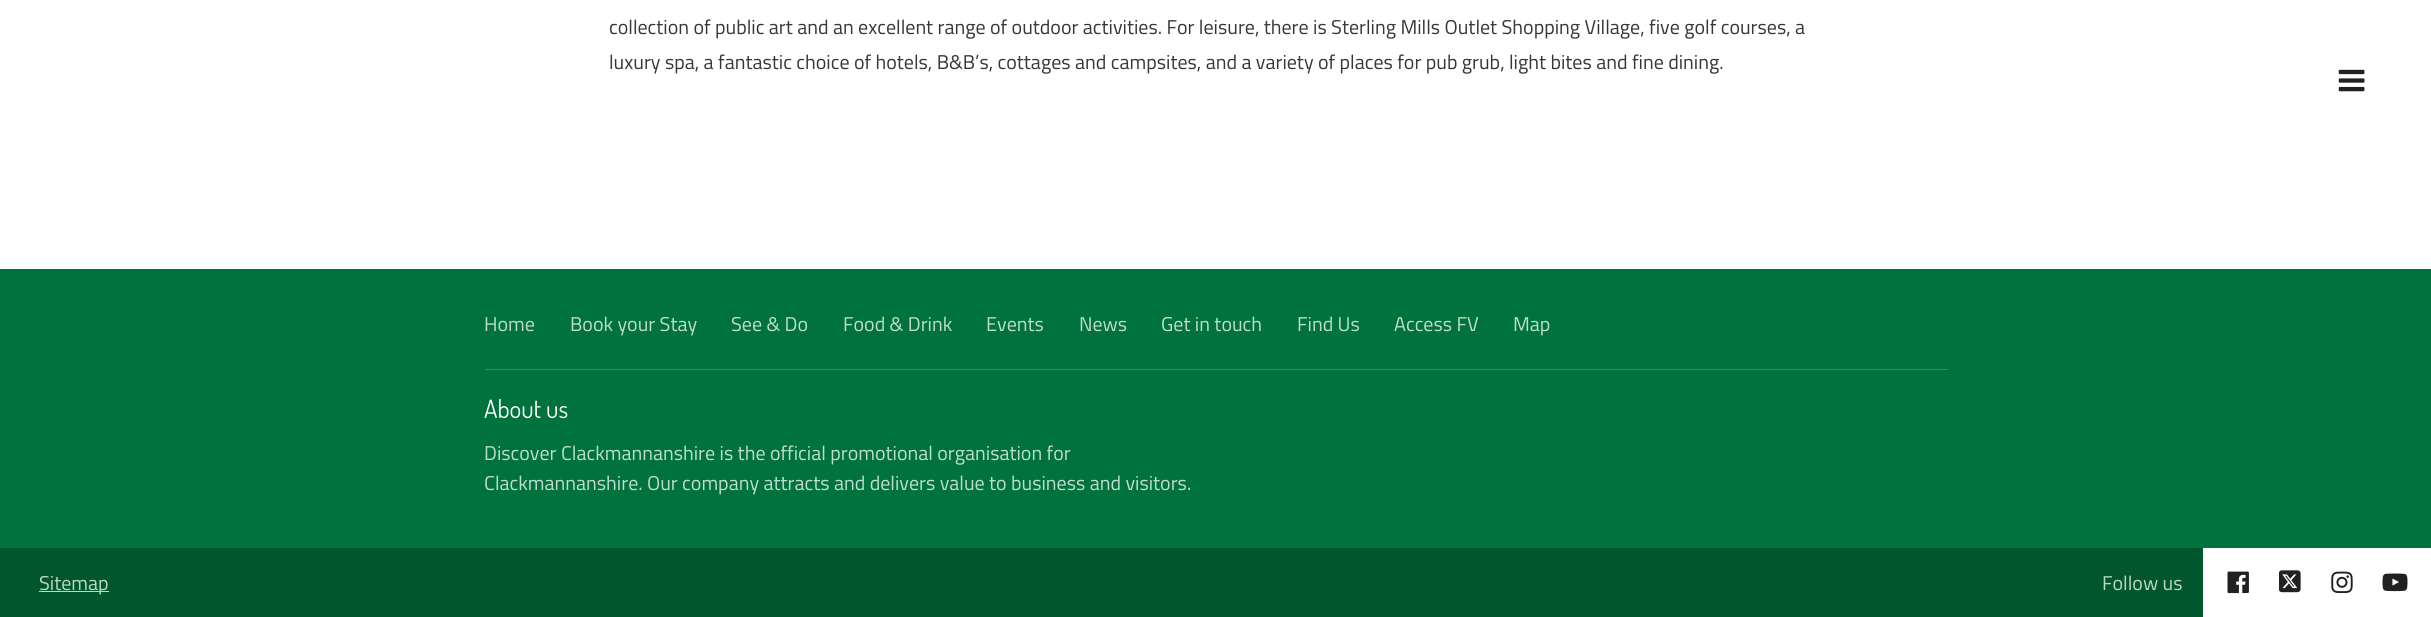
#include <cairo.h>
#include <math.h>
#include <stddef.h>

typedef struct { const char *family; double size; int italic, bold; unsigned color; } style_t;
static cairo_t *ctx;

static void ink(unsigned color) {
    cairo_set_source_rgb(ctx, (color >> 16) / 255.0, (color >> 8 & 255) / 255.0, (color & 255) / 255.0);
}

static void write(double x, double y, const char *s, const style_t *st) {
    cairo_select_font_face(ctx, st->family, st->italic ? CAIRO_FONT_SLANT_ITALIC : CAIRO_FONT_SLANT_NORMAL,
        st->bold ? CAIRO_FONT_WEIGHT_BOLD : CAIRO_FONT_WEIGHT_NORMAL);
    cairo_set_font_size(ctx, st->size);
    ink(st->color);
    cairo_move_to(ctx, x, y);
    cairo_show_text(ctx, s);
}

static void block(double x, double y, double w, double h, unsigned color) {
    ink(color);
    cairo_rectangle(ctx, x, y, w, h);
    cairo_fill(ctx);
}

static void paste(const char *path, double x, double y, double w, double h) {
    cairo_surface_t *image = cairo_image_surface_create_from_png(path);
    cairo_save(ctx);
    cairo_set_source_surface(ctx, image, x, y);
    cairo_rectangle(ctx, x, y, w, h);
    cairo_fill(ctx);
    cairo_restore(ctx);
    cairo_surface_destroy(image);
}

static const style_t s1 = {"Titillium Web", 20, 0, 0, 0x373737};
static const style_t s2 = {"Titillium Web", 20, 0, 0, 0xbfdccf};
static const style_t s3 = {"Dosis", 25, 0, 0, 0xffffff};
static const style_t s4 = {"Titillium Web", 20, 0, 0, 0xbfd5cb};

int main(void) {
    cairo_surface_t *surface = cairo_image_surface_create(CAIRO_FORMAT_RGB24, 2431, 617);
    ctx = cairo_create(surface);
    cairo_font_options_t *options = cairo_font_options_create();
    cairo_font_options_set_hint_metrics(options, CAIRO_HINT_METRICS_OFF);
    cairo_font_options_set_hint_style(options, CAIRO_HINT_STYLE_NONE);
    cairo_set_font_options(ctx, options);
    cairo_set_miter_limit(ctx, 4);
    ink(0xffffff);
    cairo_paint(ctx);
    write(609, 34, "collection of public art and an excellent range of outdoor activities. For leisure, there is Sterling Mills Outlet Shopping Village, five golf courses, a", &s1);
    write(609, 69, "luxury spa, a fantastic choice of hotels, B&B’s, cottages and campsites, and a variety of places for pub grub, light bites and fine dining.", &s1);
    paste("pic1.png", 2338, 69, 27, 23);
    block(0, 269, 2431, 279, 0x00723d);
    write(484, 331, "Home", &s2);
    write(570, 331, "Book your Stay", &s2);
    write(731, 331, "See & Do", &s2);
    write(843, 331, "Food & Drink", &s2);
    write(986, 331, "Events", &s2);
    write(1079, 331, "News", &s2);
    write(1161, 331, "Get in touch", &s2);
    write(1297, 331, "Find Us", &s2);
    write(1394, 331, "Access FV", &s2);
    write(1513, 331, "Map", &s2);
    block(485, 369, 1463, 1, 0x338e64);
    write(484, 418, "About us", &s3);
    write(484, 460, "Discover Clackmannanshire is the official promotional organisation for", &s2);
    write(484, 490, "Clackmannanshire. Our company attracts and delivers value to business and visitors.", &s2);
    block(0, 548, 2203, 69, 0x00572d);
    block(39, 591, 70, 1, 0xbfd5cb);
    write(39, 590, "Sitemap", &s4);
    write(2102, 590, "Follow us", &s4);
    paste("pic2.png", 2227, 571, 22, 23);
    paste("pic3.png", 2279, 570, 22, 23);
    paste("pic4.png", 2331, 571, 22, 22);
    paste("pic5.png", 2382, 573, 26, 19);
    cairo_surface_write_to_png(surface, "screenshot.png");
    cairo_font_options_destroy(options);
    cairo_destroy(ctx);
    cairo_surface_destroy(surface);
    return 0;
}
